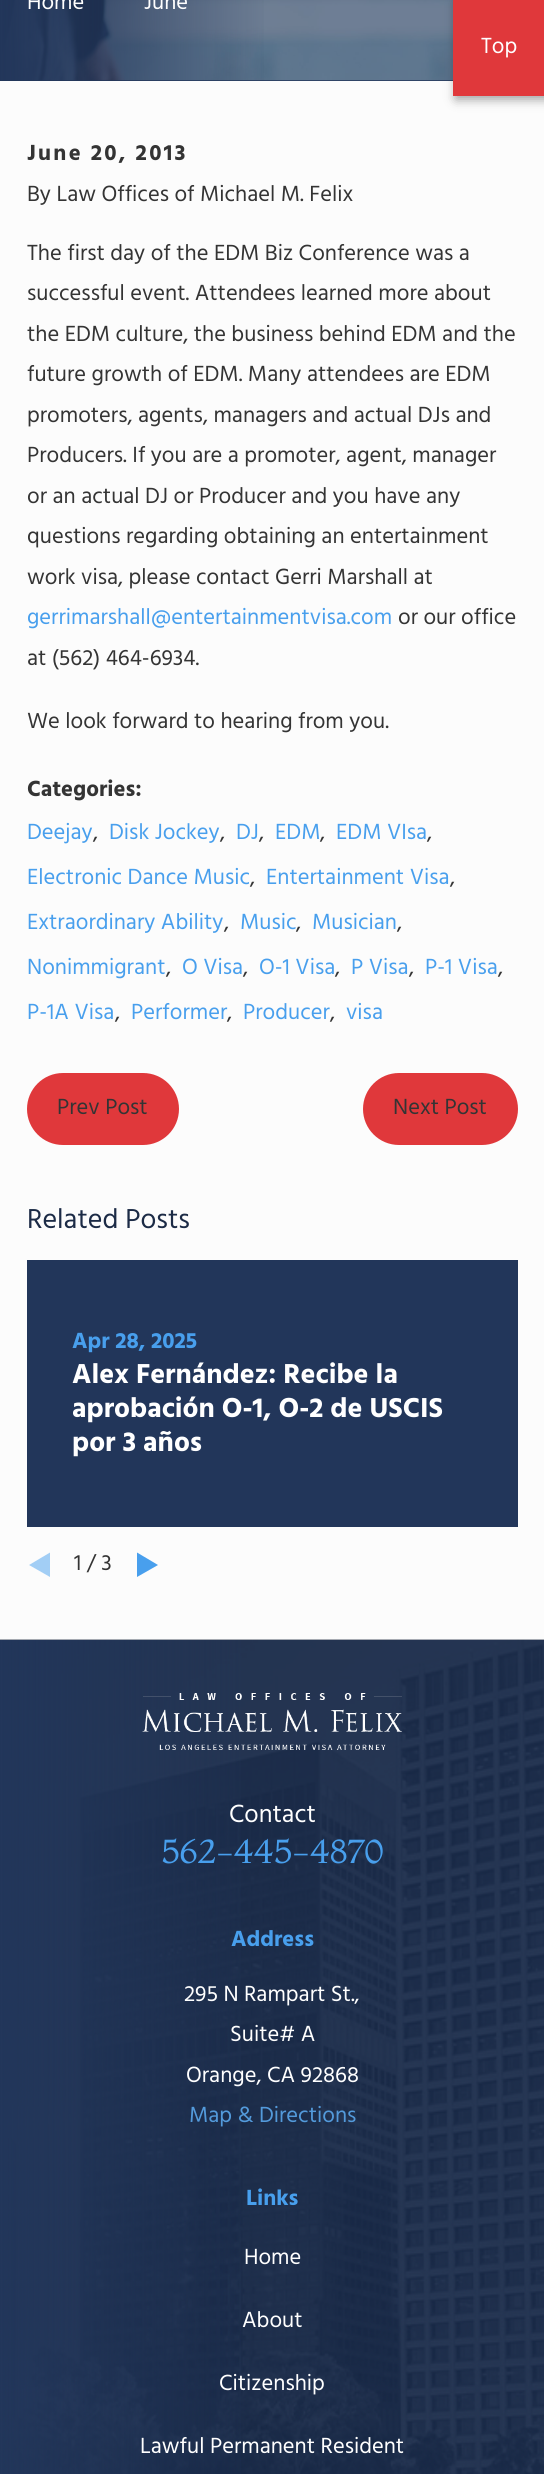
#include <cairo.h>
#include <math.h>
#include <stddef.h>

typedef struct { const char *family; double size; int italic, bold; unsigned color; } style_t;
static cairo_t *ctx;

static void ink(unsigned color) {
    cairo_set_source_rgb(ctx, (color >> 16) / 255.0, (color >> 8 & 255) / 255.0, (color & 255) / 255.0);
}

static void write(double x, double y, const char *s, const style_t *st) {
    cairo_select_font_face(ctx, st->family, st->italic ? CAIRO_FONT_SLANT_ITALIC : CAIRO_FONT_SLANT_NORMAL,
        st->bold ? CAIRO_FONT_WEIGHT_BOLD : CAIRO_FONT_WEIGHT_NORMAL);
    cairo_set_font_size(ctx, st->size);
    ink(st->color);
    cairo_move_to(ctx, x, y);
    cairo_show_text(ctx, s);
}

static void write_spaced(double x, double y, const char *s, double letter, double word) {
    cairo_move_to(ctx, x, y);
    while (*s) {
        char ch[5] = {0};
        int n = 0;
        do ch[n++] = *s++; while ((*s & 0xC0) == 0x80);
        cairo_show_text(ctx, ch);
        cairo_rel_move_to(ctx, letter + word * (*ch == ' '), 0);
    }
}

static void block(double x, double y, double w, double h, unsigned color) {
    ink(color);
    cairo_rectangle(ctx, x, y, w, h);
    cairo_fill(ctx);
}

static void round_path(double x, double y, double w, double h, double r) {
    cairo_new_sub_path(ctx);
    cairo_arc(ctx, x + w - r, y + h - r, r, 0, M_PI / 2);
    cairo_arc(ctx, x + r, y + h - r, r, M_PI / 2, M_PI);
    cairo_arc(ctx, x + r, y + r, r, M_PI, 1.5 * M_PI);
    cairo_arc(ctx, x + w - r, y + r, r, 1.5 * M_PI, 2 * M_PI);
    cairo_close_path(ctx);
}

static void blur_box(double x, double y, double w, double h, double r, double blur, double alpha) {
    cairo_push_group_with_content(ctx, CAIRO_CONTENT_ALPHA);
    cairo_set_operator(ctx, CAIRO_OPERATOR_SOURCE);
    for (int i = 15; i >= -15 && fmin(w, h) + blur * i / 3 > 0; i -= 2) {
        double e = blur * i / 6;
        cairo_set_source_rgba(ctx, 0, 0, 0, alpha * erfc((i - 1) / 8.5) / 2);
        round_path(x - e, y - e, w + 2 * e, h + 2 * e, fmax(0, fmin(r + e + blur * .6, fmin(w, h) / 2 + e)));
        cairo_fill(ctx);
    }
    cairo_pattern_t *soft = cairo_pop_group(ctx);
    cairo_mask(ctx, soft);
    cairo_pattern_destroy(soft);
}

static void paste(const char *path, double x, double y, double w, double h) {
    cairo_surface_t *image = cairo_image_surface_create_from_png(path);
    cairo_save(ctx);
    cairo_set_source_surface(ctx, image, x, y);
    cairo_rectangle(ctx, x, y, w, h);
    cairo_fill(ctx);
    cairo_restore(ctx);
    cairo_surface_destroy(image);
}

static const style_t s1 = {"Hind", 22.5, 0, 0, 0xffffff};
static const style_t s2 = {"Hind", 22.5, 0, 0, 0x343434};
static const style_t s3 = {"Hind", 22.5, 0, 0, 0x489fed};
static const style_t s4 = {"Hind", 22.5, 0, 1, 0x343434};
static const style_t s5 = {"Hind", 28.1, 0, 0, 0x1c2b46};
static const style_t s6 = {"Hind", 22.5, 0, 1, 0x489fed};
static const style_t s7 = {"Hind", 28.1, 0, 1, 0xffffff};
static const style_t s8 = {"Hind", 25.5, 0, 0, 0xffffff};
static const style_t s9 = {"Montaga", 33.75, 0, 0, 0x489fed};
static const style_t s10 = {"Hind", 22.5, 0, 0, 0x539adb};

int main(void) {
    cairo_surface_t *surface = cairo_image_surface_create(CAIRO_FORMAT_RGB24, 544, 2474);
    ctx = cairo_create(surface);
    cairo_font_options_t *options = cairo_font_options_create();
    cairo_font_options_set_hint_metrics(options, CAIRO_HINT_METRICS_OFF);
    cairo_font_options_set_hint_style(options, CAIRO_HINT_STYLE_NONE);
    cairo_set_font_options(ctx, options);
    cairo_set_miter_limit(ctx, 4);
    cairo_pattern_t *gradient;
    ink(0xfcfcfc);
    cairo_paint(ctx);
    block(2, 0, 451, 81, 0x22365a);
    paste("pic1.png", 2, 0, 451, 81);
    gradient = cairo_pattern_create_linear(0, -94, 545, -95);
    cairo_pattern_add_color_stop_rgba(gradient, 0, 0.133, 0.212, 0.353, 1);
    cairo_pattern_add_color_stop_rgba(gradient, 0.5, 0.133, 0.212, 0.353, 0);
    cairo_pattern_add_color_stop_rgba(gradient, 1, 0, 0, 0, 0);
    cairo_set_source(ctx, gradient);
    cairo_pattern_destroy(gradient);
    cairo_rectangle(ctx, 0, 0, 264, 81);
    cairo_fill(ctx);
    write(27, 9, "Home", &s1);
    write(144, 9, "June", &s1);
    cairo_select_font_face(ctx, "Hind", CAIRO_FONT_SLANT_NORMAL, CAIRO_FONT_WEIGHT_BOLD);
    ink(0x343434);
    write_spaced(27, 160, "June 20, 2013", 2.25, 0);
    write(27, 201, "By Law Offices of Michael M. Felix", &s2);
    write(27, 260, "The first day of the EDM Biz Conference was a", &s2);
    write(27, 300, "successful event. Attendees learned more about", &s2);
    write(27, 341, "the EDM culture, the business behind EDM and the", &s2);
    write(27, 381, "future growth of EDM. Many attendees are EDM", &s2);
    write(27, 422, "promoters, agents, managers and actual DJs and", &s2);
    write(27, 462, "Producers. If you are a promoter, agent, manager", &s2);
    write(27, 503, "or an actual DJ or Producer and you have any", &s2);
    write(27, 543, "questions regarding obtaining an entertainment", &s2);
    write(27, 584, "work visa, please contact Gerri Marshall at", &s2);
    write(27, 624, "gerrimarshall@entertainmentvisa.com", &s3);
    write(398, 624, "or our office", &s2);
    write(27, 665, "at (562) 464-6934.", &s2);
    write(27, 728, "We look forward to hearing from you.", &s2);
    write(27, 796, "Categories:", &s4);
    write(27, 839, "Deejay", &s3);
    write(93, 839, ",", &s2);
    write(109, 839, "Disk Jockey", &s3);
    write(220, 839, ",", &s2);
    write(236, 839, "DJ", &s3);
    write(259, 839, ",", &s2);
    write(275, 839, "EDM", &s3);
    write(320, 839, ",", &s2);
    write(336, 839, "EDM VIsa", &s3);
    write(427, 839, ",", &s2);
    write(27, 884, "Electronic Dance Music", &s3);
    write(250, 884, ",", &s2);
    write(266, 884, "Entertainment Visa", &s3);
    write(450, 884, ",", &s2);
    write(27, 929, "Extraordinary Ability", &s3);
    write(224, 929, ",", &s2);
    write(240, 929, "Music", &s3);
    write(296, 929, ",", &s2);
    write(312, 929, "Musician", &s3);
    write(397, 929, ",", &s2);
    write(27, 974, "Nonimmigrant", &s3);
    write(166, 974, ",", &s2);
    write(182, 974, "O Visa", &s3);
    write(243, 974, ",", &s2);
    write(259, 974, "O-1 Visa", &s3);
    write(335, 974, ",", &s2);
    write(351, 974, "P Visa", &s3);
    write(409, 974, ",", &s2);
    write(425, 974, "P-1 Visa", &s3);
    write(498, 974, ",", &s2);
    write(27, 1019, "P-1A Visa", &s3);
    write(115, 1019, ",", &s2);
    write(131, 1019, "Performer", &s3);
    write(227, 1019, ",", &s2);
    write(243, 1019, "Producer", &s3);
    write(330, 1019, ",", &s2);
    write(346, 1019, "visa", &s3);
    ink(0xe0383b);
    round_path(27, 1073, 152, 72, 36);
    cairo_fill(ctx);
    write(57, 1114, "Prev Post", &s2);
    ink(0xe0383b);
    round_path(363, 1073, 155, 72, 36);
    cairo_fill(ctx);
    write(393, 1114, "Next Post", &s2);
    write(27, 1228, "Related Posts", &s5);
    block(27, 1260, 491, 267, 0x22365a);
    write(72, 1348, "Apr 28, 2025", &s6);
    write(72, 1383, "Alex Fernández: Recibe la", &s7);
    write(72, 1417, "aprobación O-1, O-2 de USCIS", &s7);
    write(72, 1451, "por 3 años", &s7);
    ink(0xa2cef5);
    cairo_new_path(ctx);
    cairo_move_to(ctx, 29, 1565);
    cairo_line_to(ctx, 50, 1552.5);
    cairo_line_to(ctx, 50, 1577);
    cairo_close_path(ctx);
    cairo_fill(ctx);
    write(74, 1570, "1 / 3", &s2);
    ink(0x489fed);
    cairo_new_path(ctx);
    cairo_move_to(ctx, 158, 1565);
    cairo_line_to(ctx, 137, 1577);
    cairo_line_to(ctx, 137, 1552.5);
    cairo_close_path(ctx);
    cairo_fill(ctx);
    ink(0x000000);
    blur_box(456, 3, 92, 96, 0, 5.5, 0.4);
    block(453, 0, 91, 96, 0xe0383b);
    write(481, 53, "Top", &s1);
    block(2, 1640, 542, 834, 0x22365a);
    paste("pic2.png", 0, 1639, 544, 835);
    gradient = cairo_pattern_create_linear(0, 2242, 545, 2242);
    cairo_pattern_add_color_stop_rgba(gradient, 0, 0.133, 0.212, 0.353, 1);
    cairo_pattern_add_color_stop_rgba(gradient, 0.5, 0.133, 0.212, 0.353, 0);
    cairo_pattern_add_color_stop_rgba(gradient, 1, 0, 0, 0, 0);
    cairo_set_source(ctx, gradient);
    cairo_pattern_destroy(gradient);
    cairo_rectangle(ctx, 0, 1640, 241, 834);
    cairo_fill(ctx);
    paste("pic3.png", 142, 1693, 260, 57);
    write(229, 1822, "Contact", &s8);
    write(161, 1863, "562-445-4870", &s9);
    write(231, 1946, "Address", &s6);
    write(184, 2001, "295 N Rampart St.,", &s1);
    write(230, 2041, "Suite# A", &s1);
    write(186, 2082, "Orange, CA 92868", &s1);
    write(189, 2122, "Map & Directions", &s10);
    write(246, 2205, "Links", &s6);
    write(244, 2264, "Home", &s1);
    write(242, 2327, "About", &s1);
    write(219, 2390, "Citizenship", &s1);
    write(140, 2453, "Lawful Permanent Resident", &s1);
    cairo_surface_write_to_png(surface, "screenshot.png");
    cairo_font_options_destroy(options);
    cairo_destroy(ctx);
    cairo_surface_destroy(surface);
    return 0;
}
